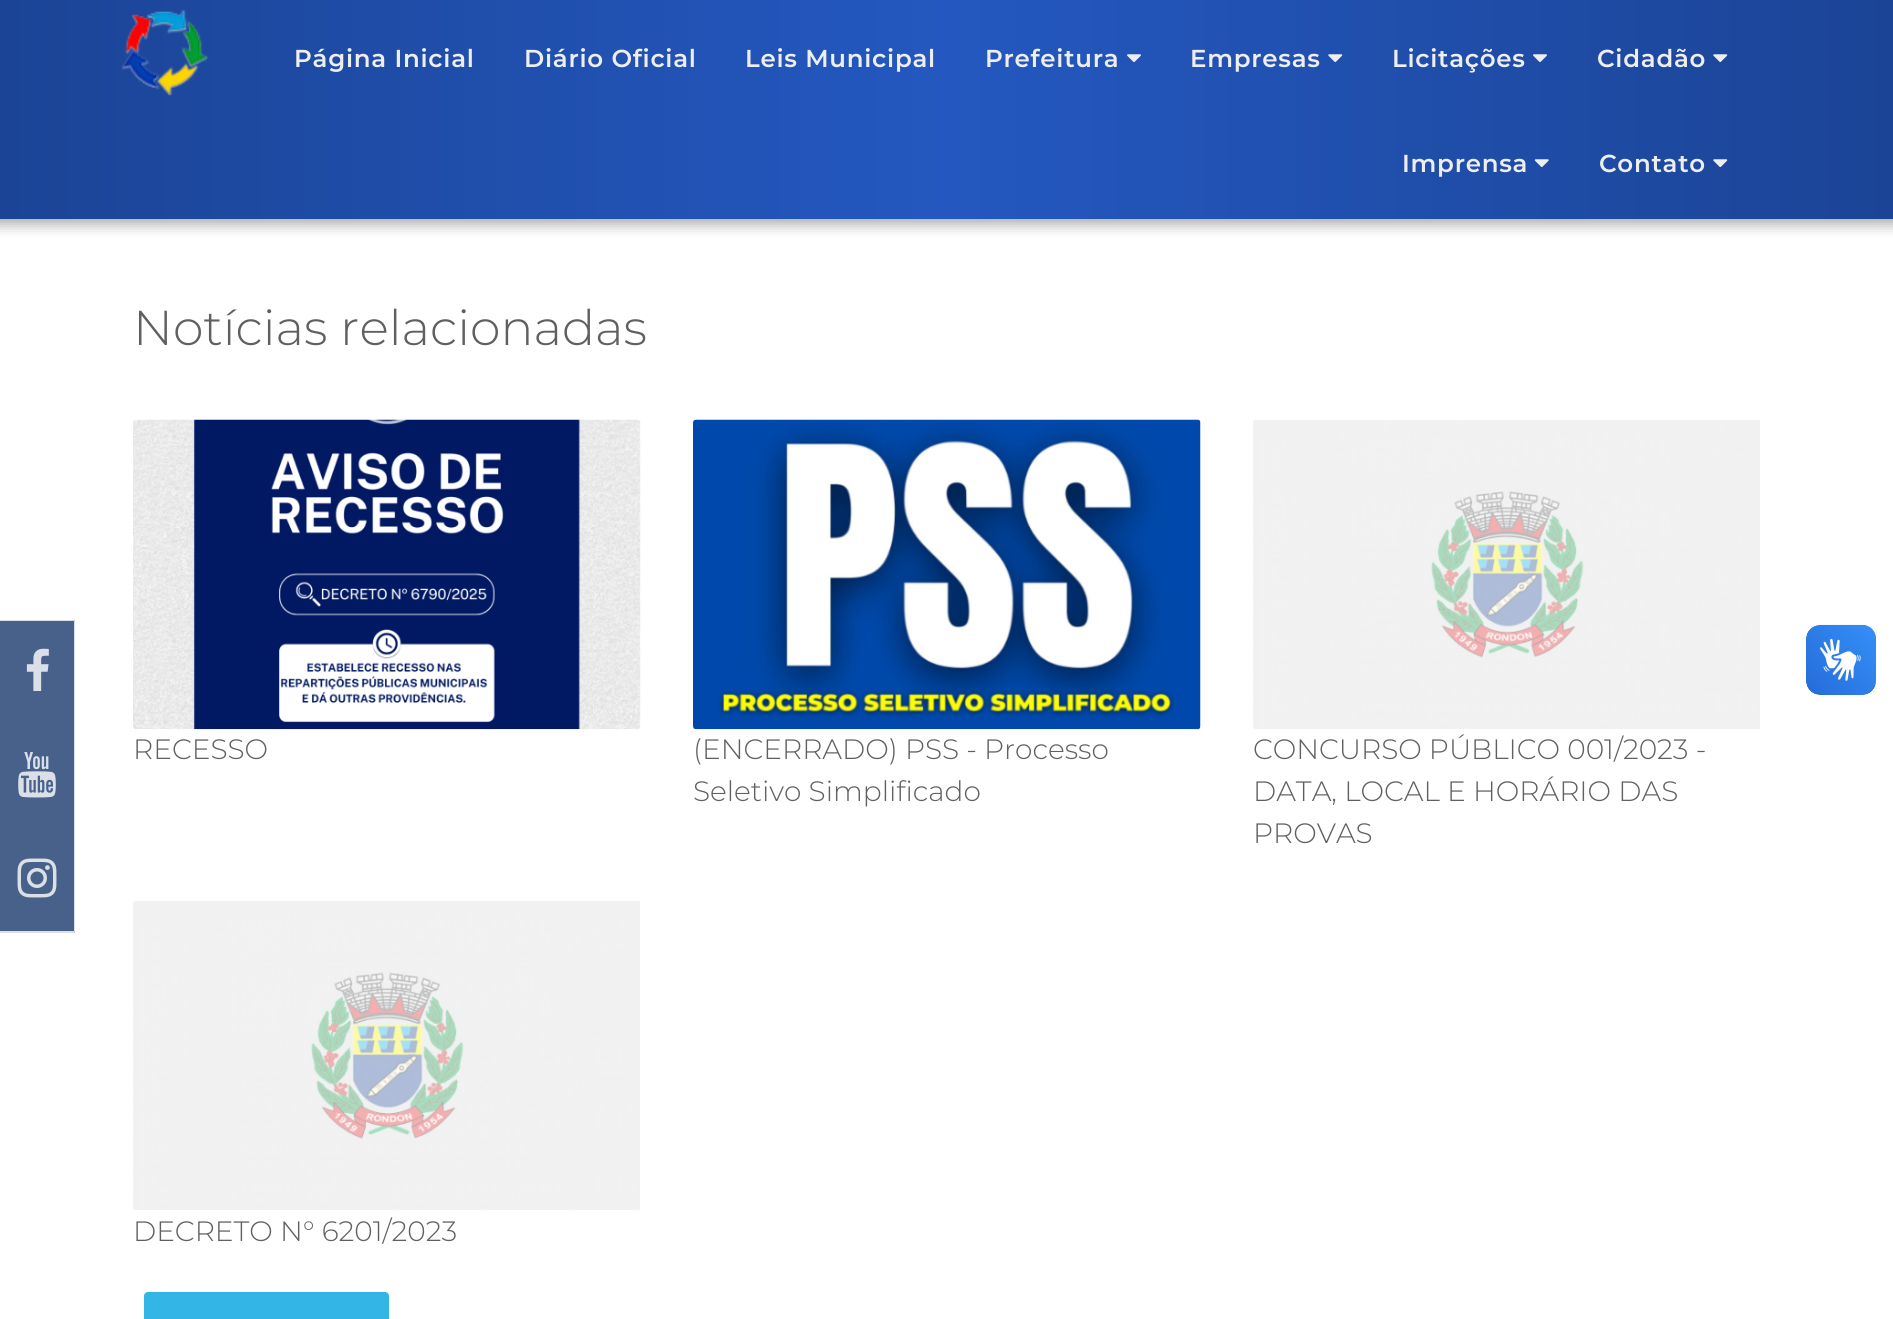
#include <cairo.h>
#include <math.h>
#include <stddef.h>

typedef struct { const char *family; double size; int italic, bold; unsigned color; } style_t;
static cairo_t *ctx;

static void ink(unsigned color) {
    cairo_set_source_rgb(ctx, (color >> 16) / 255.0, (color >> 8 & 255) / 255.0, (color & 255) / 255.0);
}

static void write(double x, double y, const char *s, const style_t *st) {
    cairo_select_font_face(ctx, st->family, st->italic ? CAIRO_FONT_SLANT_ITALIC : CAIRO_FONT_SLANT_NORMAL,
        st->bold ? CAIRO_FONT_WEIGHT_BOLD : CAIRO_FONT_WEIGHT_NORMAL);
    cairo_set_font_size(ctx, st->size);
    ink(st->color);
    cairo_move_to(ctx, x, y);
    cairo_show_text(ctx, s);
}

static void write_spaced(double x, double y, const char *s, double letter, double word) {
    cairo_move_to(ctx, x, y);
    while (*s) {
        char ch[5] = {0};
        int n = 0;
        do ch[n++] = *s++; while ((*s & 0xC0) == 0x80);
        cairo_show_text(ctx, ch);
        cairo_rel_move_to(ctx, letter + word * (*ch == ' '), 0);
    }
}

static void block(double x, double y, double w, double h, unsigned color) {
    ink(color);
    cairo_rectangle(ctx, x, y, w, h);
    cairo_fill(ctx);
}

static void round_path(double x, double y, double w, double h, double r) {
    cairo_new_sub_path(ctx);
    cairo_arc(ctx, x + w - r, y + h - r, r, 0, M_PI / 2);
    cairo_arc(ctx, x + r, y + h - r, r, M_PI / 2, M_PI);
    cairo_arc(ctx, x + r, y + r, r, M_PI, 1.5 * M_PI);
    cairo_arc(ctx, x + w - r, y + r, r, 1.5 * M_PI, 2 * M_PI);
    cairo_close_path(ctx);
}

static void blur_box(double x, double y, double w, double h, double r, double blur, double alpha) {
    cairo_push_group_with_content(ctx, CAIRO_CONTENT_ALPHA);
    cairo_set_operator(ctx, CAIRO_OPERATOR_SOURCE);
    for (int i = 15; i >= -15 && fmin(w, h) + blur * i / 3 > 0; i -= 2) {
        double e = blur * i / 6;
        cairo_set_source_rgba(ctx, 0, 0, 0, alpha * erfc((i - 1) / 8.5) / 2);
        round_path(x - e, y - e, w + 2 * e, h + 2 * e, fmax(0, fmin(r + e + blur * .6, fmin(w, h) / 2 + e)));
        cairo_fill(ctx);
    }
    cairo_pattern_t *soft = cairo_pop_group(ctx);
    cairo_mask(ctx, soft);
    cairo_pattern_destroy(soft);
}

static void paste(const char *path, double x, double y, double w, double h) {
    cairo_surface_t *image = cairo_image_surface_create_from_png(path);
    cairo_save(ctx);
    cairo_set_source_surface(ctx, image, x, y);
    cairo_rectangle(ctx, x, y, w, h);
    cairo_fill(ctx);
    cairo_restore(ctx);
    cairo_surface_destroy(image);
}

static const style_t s1 = {"Montserrat Light", 49, 0, 0, 0x606060};
static const style_t s2 = {"Montserrat Light", 28, 0, 0, 0x606060};

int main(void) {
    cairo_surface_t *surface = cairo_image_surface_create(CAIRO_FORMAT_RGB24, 1893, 1319);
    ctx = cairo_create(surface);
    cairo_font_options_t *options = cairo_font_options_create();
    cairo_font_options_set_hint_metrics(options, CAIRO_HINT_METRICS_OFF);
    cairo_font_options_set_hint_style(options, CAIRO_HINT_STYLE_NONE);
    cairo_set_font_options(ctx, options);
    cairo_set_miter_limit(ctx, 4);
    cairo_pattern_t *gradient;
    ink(0xffffff);
    cairo_paint(ctx);
    ink(0x000000);
    blur_box(-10, -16, 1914, 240, 0, 7, 0.35);
    gradient = cairo_pattern_create_linear(0, 109, 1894, 109);
    cairo_pattern_add_color_stop_rgba(gradient, 0, 0.106, 0.267, 0.588, 1);
    cairo_pattern_add_color_stop_rgba(gradient, 0.5, 0.141, 0.345, 0.753, 1);
    cairo_pattern_add_color_stop_rgba(gradient, 1, 0.106, 0.267, 0.588, 1);
    cairo_set_source(ctx, gradient);
    cairo_pattern_destroy(gradient);
    cairo_rectangle(ctx, 0, 0, 1893, 219);
    cairo_fill(ctx);
    paste("pic1.png", 121, 10, 88, 86);
    cairo_select_font_face(ctx, "Montserrat SemiBold", CAIRO_FONT_SLANT_NORMAL, CAIRO_FONT_WEIGHT_NORMAL);
    cairo_set_font_size(ctx, 24.5);
    ink(0xeeeeee);
    write_spaced(294, 67, "Página Inicial", 0.75, 0);
    write_spaced(524, 67, "Diário Oficial", 0.75, 0);
    write_spaced(745, 67, "Leis Municipal", 0.75, 0);
    write_spaced(985, 67, "Prefeitura", 0.75, 0);
    paste("pic2.png", 1127, 54, 14, 8);
    write_spaced(1190, 67, "Empresas", 0.75, 0);
    paste("pic3.png", 1328, 54, 15, 9);
    write_spaced(1392, 67, "Licitações", 0.75, 0);
    paste("pic4.png", 1533, 54, 14, 8);
    write_spaced(1597, 67, "Cidadão", 0.75, 0);
    paste("pic5.png", 1713, 54, 15, 9);
    write_spaced(1402, 172, "Imprensa", 0.75, 0);
    paste("pic6.png", 1534, 159, 15, 9);
    write_spaced(1599, 172, "Contato", 0.75, 0);
    paste("pic5.png", 1713, 159, 15, 9);
    block(0, 620, 75, 313, 0x47618b);
    ink(0xdadfe8);
    cairo_new_path(ctx);
    cairo_move_to(ctx, 0, 620);
    cairo_line_to(ctx, 75, 620);
    cairo_line_to(ctx, 74, 621);
    cairo_line_to(ctx, 0, 621);
    cairo_close_path(ctx);
    cairo_fill(ctx);
    cairo_set_source_rgba(ctx, 1, 1, 1, 0.8);
    cairo_new_path(ctx);
    cairo_move_to(ctx, 75, 620);
    cairo_line_to(ctx, 75, 933);
    cairo_line_to(ctx, 74, 931);
    cairo_line_to(ctx, 74, 621);
    cairo_close_path(ctx);
    cairo_fill(ctx);
    cairo_new_path(ctx);
    cairo_move_to(ctx, 75, 933);
    cairo_line_to(ctx, 0, 933);
    cairo_line_to(ctx, 0, 931);
    cairo_line_to(ctx, 74, 931);
    cairo_close_path(ctx);
    cairo_fill(ctx);
    paste("pic7.png", 26, 648, 23, 43);
    paste("pic8.png", 18, 752, 38, 46);
    paste("pic9.png", 17, 858, 40, 40);
    write(133, 345, "Notícias relacionadas", &s1);
    paste("pic10.png", 133, 419, 508, 311);
    write(133, 759, "RECESSO", &s2);
    paste("pic11.png", 693, 419, 508, 311);
    write(693, 759, "(ENCERRADO) PSS - Processo", &s2);
    write(693, 801, "Seletivo Simplificado", &s2);
    paste("pic12.png", 1253, 420, 507, 309);
    write(1253, 759, "CONCURSO PÚBLICO 001/2023 -", &s2);
    write(1253, 801, "DATA, LOCAL E HORÁRIO DAS", &s2);
    write(1253, 843, "PROVAS", &s2);
    paste("pic13.png", 133, 901, 507, 309);
    write(133, 1241, "DECRETO N° 6201/2023", &s2);
    ink(0x33b5e5);
    round_path(144, 1292, 245, 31, 4);
    cairo_fill(ctx);
    paste("pic14.png", 1806, 624, 70, 71);
    paste("pic15.png", 1806, 625, 70, 70);
    cairo_surface_write_to_png(surface, "screenshot.png");
    cairo_font_options_destroy(options);
    cairo_destroy(ctx);
    cairo_surface_destroy(surface);
    return 0;
}
